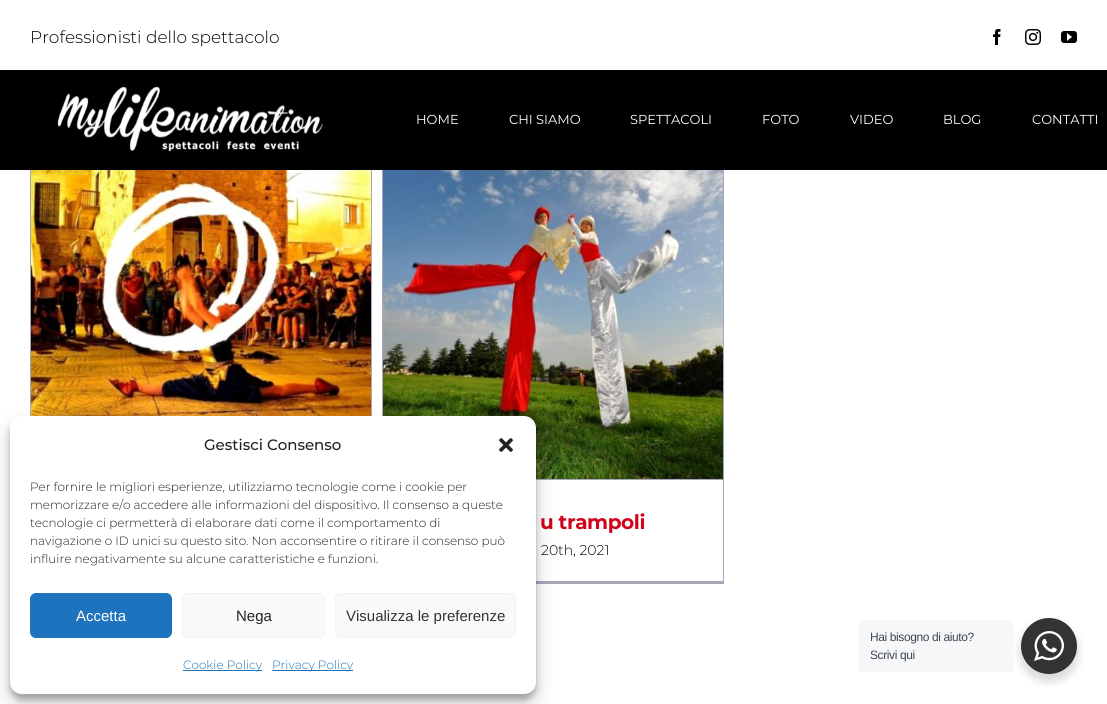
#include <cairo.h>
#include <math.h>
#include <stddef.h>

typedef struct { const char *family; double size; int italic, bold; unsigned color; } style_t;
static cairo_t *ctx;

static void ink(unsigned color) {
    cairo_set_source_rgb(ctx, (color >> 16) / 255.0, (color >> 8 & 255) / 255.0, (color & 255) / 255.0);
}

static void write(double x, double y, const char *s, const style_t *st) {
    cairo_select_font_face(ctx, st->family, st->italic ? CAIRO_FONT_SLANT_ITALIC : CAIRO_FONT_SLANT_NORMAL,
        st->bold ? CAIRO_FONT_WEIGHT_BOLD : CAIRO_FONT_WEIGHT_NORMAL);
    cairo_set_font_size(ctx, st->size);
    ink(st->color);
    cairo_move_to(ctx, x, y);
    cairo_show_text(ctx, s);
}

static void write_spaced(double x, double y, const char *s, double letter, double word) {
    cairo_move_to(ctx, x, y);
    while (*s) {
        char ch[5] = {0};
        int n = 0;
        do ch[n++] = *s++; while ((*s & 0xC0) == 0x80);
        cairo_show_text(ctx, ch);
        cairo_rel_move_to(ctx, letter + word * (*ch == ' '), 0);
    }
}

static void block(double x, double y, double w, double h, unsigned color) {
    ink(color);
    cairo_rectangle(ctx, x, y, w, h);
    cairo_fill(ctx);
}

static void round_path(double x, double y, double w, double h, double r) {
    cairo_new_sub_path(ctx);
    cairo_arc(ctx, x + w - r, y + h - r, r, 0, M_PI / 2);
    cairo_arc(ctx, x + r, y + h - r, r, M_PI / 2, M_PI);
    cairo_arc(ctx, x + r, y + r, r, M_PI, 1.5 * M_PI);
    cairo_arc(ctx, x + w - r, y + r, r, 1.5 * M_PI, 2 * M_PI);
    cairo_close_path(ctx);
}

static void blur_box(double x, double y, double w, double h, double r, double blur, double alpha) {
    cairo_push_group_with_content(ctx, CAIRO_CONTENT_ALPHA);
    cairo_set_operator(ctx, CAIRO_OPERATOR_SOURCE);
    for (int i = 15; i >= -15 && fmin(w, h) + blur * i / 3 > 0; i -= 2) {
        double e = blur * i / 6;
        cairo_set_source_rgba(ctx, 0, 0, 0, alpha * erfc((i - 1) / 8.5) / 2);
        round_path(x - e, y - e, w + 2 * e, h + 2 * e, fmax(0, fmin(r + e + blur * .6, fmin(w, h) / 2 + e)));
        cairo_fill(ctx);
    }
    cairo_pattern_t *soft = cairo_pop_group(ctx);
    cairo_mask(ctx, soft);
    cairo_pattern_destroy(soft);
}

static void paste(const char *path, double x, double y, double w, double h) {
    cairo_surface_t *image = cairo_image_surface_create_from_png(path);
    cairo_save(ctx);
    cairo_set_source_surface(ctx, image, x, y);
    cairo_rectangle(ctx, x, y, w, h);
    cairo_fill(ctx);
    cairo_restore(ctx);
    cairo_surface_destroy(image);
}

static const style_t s1 = {"Montserrat Light", 17, 0, 0, 0x000000};
static const style_t s2 = {"Montserrat", 13, 0, 0, 0xffffff};
static const style_t s3 = {"Montserrat Light", 14, 0, 0, 0x000000};
static const style_t s4 = {"Montserrat Medium", 15, 0, 0, 0x222222};
static const style_t s5 = {"Montserrat Light", 12, 0, 0, 0x222222};
static const style_t s6 = {"Liberation Sans", 15, 0, 0, 0xffffff};
static const style_t s7 = {"Liberation Sans", 15, 0, 0, 0x222222};
static const style_t s8 = {"Liberation Sans", 15, 0, 0, 0x333333};
static const style_t s9 = {"Montserrat Light", 12, 0, 0, 0x1e73be};

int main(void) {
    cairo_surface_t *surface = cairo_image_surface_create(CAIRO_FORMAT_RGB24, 1107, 704);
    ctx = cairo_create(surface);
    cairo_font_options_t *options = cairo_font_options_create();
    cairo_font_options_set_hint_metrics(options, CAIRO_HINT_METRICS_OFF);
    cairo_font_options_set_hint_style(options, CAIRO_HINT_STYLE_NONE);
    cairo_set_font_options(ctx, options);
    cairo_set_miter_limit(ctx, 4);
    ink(0xffffff);
    cairo_paint(ctx);
    write(30, 43, "Professionisti dello spettacolo", &s1);
    paste("pic1.png", 993, 29, 8, 16);
    paste("pic2.png", 1025, 29, 16, 16);
    paste("pic3.png", 1061, 31, 16, 12);
    cairo_set_source_rgba(ctx, 0.153, 0.141, 0.318, 0.4);
    cairo_new_path(ctx);
    cairo_move_to(ctx, 372, 138);
    cairo_line_to(ctx, 372, 633);
    cairo_line_to(ctx, 371, 630);
    cairo_line_to(ctx, 371, 139);
    cairo_close_path(ctx);
    cairo_fill(ctx);
    cairo_new_path(ctx);
    cairo_move_to(ctx, 30, 633);
    cairo_line_to(ctx, 30, 138);
    cairo_line_to(ctx, 31, 139);
    cairo_line_to(ctx, 31, 630);
    cairo_close_path(ctx);
    cairo_fill(ctx);
    cairo_new_path(ctx);
    cairo_move_to(ctx, 724, 138);
    cairo_line_to(ctx, 724, 584);
    cairo_line_to(ctx, 723, 581);
    cairo_line_to(ctx, 723, 139);
    cairo_close_path(ctx);
    cairo_fill(ctx);
    cairo_new_path(ctx);
    cairo_move_to(ctx, 724, 584);
    cairo_line_to(ctx, 382, 584);
    cairo_line_to(ctx, 383, 581);
    cairo_line_to(ctx, 723, 581);
    cairo_close_path(ctx);
    cairo_fill(ctx);
    cairo_new_path(ctx);
    cairo_move_to(ctx, 382, 584);
    cairo_line_to(ctx, 382, 138);
    cairo_line_to(ctx, 383, 139);
    cairo_line_to(ctx, 383, 581);
    cairo_close_path(ctx);
    cairo_fill(ctx);
    block(0, 70, 1107, 100, 0x000000);
    paste("pic4.png", 57, 86, 266, 66);
    write(416, 124, "HOME", &s2);
    write(509, 124, "CHI SIAMO", &s2);
    write(630, 124, "SPETTACOLI", &s2);
    write(762, 124, "FOTO", &s2);
    write(850, 124, "VIDEO", &s2);
    write(943, 124, "BLOG", &s2);
    write(1032, 124, "CONTATTI", &s2);
    paste("pic5.png", 31, 170, 340, 246);
    block(536, 479, 187, 1, 0xa9a7b9);
    paste("pic6.png", 383, 170, 340, 309);
    cairo_select_font_face(ctx, "Montserrat", CAIRO_FONT_SLANT_NORMAL, CAIRO_FONT_WEIGHT_BOLD);
    cairo_set_font_size(ctx, 20);
    ink(0xd1031b);
    write_spaced(540, 529, "u trampoli", -0.4, 0);
    write(541, 555, "20th, 2021", &s3);
    ink(0x000000);
    blur_box(10, 422, 526, 278, 12, 3, 0.23);
    blur_box(10, 426, 526, 278, 12, 10, 0.19);
    ink(0xffffff);
    round_path(10, 416, 526, 278, 12);
    cairo_fill(ctx);
    write(204, 450, "Gestisci Consenso", &s4);
    paste("pic7.png", 499, 438, 14, 14);
    write(30, 491, "Per fornire le migliori esperienze, utilizziamo tecnologie come i cookie per", &s5);
    write(30, 509, "memorizzare e/o accedere alle informazioni del dispositivo. Il consenso a queste", &s5);
    write(30, 527, "tecnologie ci permetterà di elaborare dati come il comportamento di", &s5);
    write(30, 545, "navigazione o ID unici su questo sito. Non acconsentire o ritirare il consenso può", &s5);
    write(30, 563, "influire negativamente su alcune caratteristiche e funzioni.", &s5);
    ink(0x1e73be);
    round_path(30.5, 593.5, 141, 44, 5.5);
    cairo_fill_preserve(ctx);
    cairo_set_line_width(ctx, 1);
    cairo_stroke(ctx);
    write(76, 621, "Accetta", &s6);
    ink(0xf9f9f9);
    round_path(182.5, 593.5, 142, 44, 5.5);
    cairo_fill_preserve(ctx);
    ink(0xf2f2f2);
    cairo_stroke(ctx);
    write(236, 621, "Nega", &s7);
    ink(0xf9f9f9);
    round_path(335.5, 593.5, 180, 44, 5.5);
    cairo_fill_preserve(ctx);
    ink(0xf2f2f2);
    cairo_stroke(ctx);
    write(346, 621, "Visualizza le preferenze", &s8);
    block(183, 670, 79, 1, 0x1e73be);
    write(183, 669, "Cookie Policy", &s9);
    block(272, 670, 81, 1, 0x1e73be);
    write(272, 669, "Privacy Policy", &s9);
    ink(0x000000);
    blur_box(1019, 622, 60, 60, 30, 4, 0.14);
    ink(0xf5f7f9);
    round_path(858, 620, 156, 52, 4);
    cairo_fill(ctx);
    cairo_select_font_face(ctx, "Liberation Sans", CAIRO_FONT_SLANT_NORMAL, CAIRO_FONT_WEIGHT_NORMAL);
    ink(0x43474e);
    write_spaced(870, 641, "Hai bisogno di aiuto?", -0.4, 0);
    write_spaced(870, 659, "Scrivi qui", -0.4, 0);
    ink(0x333333);
    cairo_new_path(ctx);
    cairo_arc(ctx, 1049, 646, 28, 0, 2 * M_PI);
    cairo_fill(ctx);
    paste("pic8.png", 1034, 631, 30, 30);
    cairo_surface_write_to_png(surface, "screenshot.png");
    cairo_font_options_destroy(options);
    cairo_destroy(ctx);
    cairo_surface_destroy(surface);
    return 0;
}
